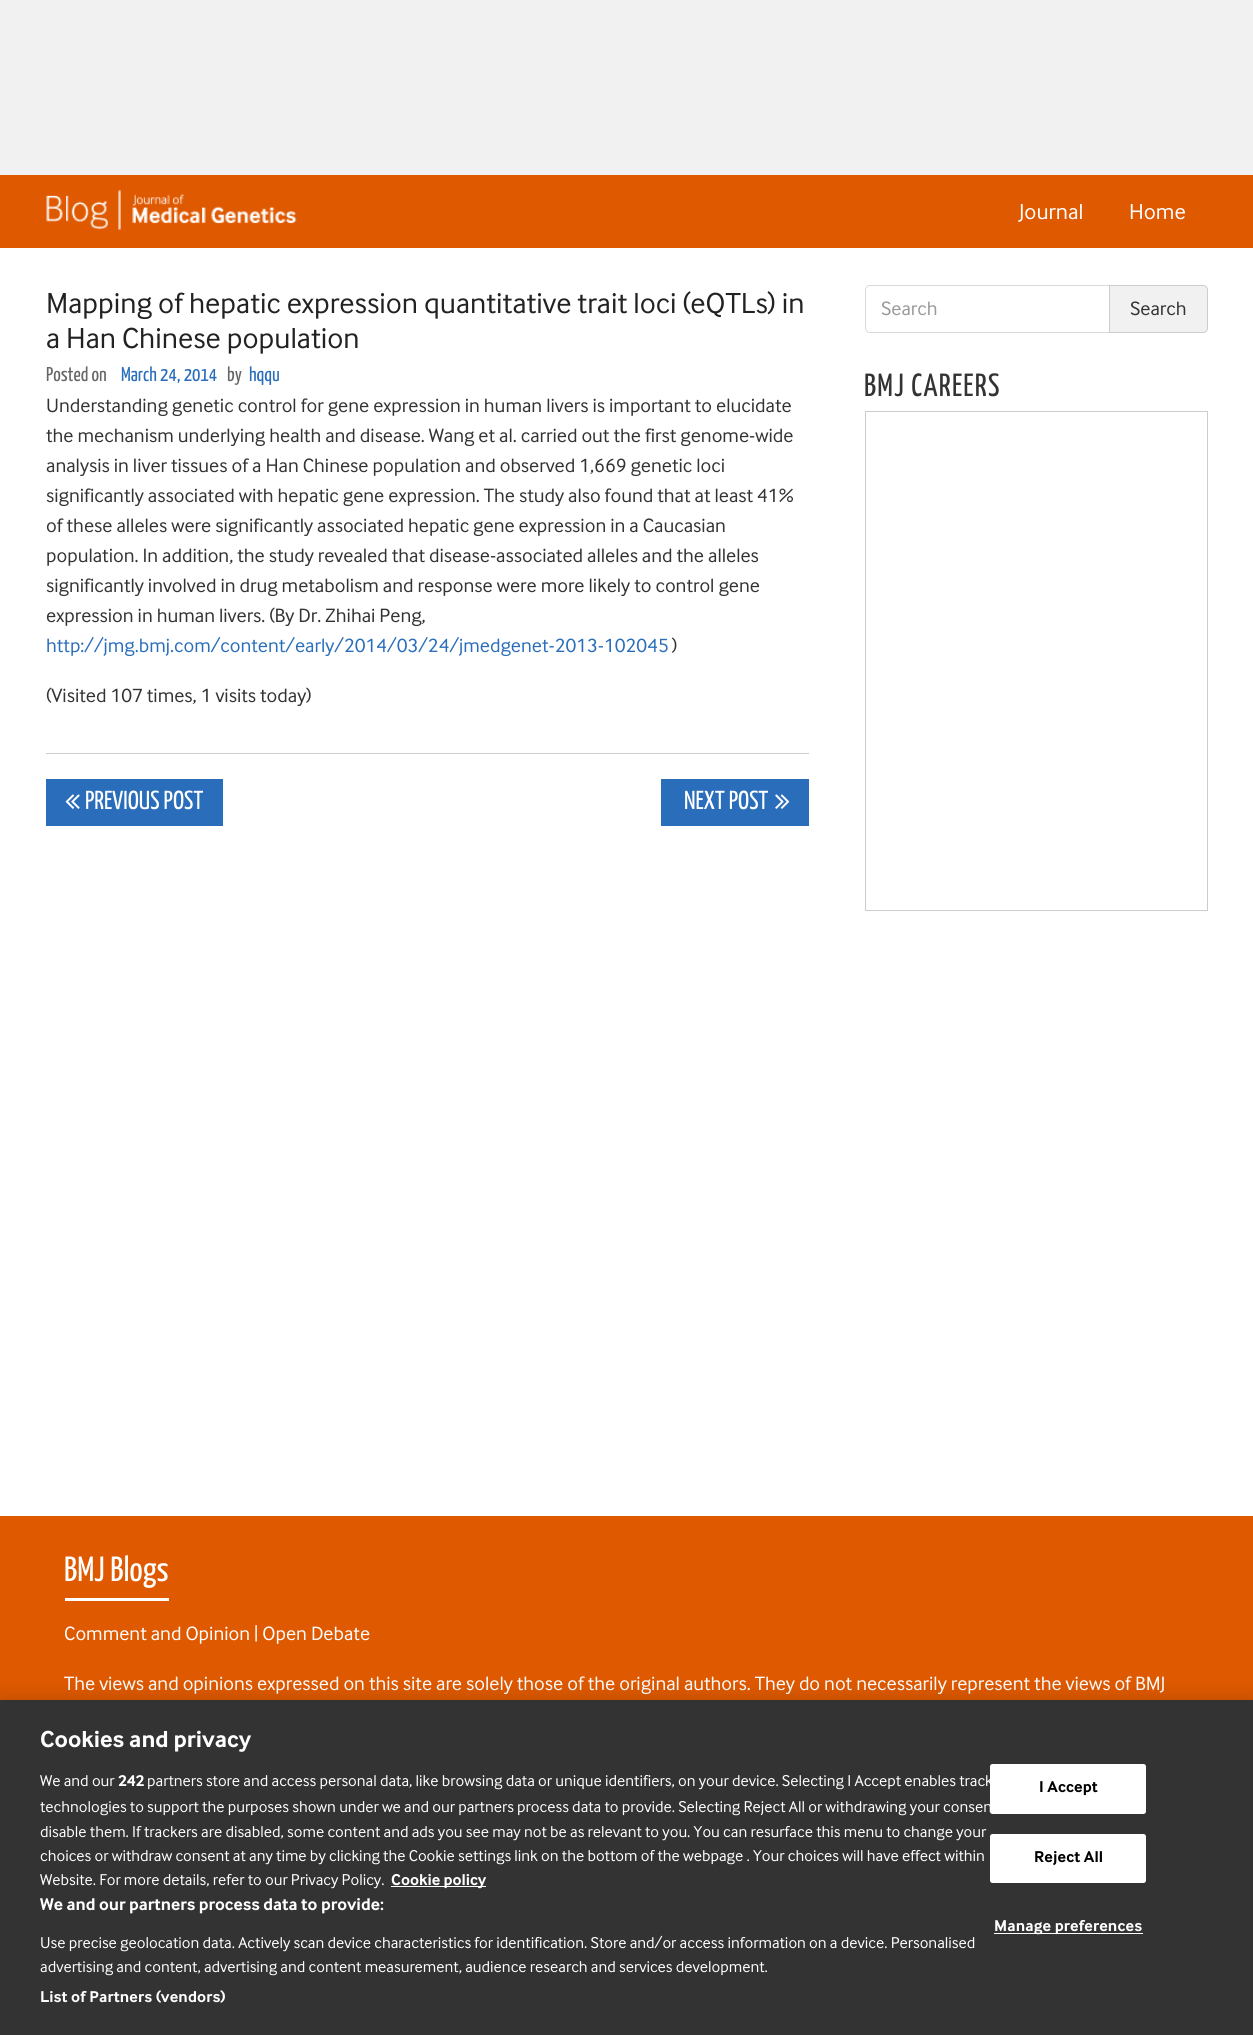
#include <cairo.h>
#include <math.h>
#include <stddef.h>

typedef struct { const char *family; double size; int italic, bold; unsigned color; } style_t;
static cairo_t *ctx;

static void ink(unsigned color) {
    cairo_set_source_rgb(ctx, (color >> 16) / 255.0, (color >> 8 & 255) / 255.0, (color & 255) / 255.0);
}

static void write(double x, double y, const char *s, const style_t *st) {
    cairo_select_font_face(ctx, st->family, st->italic ? CAIRO_FONT_SLANT_ITALIC : CAIRO_FONT_SLANT_NORMAL,
        st->bold ? CAIRO_FONT_WEIGHT_BOLD : CAIRO_FONT_WEIGHT_NORMAL);
    cairo_set_font_size(ctx, st->size);
    ink(st->color);
    cairo_move_to(ctx, x, y);
    cairo_show_text(ctx, s);
}

static void write_spaced(double x, double y, const char *s, double letter, double word) {
    cairo_move_to(ctx, x, y);
    while (*s) {
        char ch[5] = {0};
        int n = 0;
        do ch[n++] = *s++; while ((*s & 0xC0) == 0x80);
        cairo_show_text(ctx, ch);
        cairo_rel_move_to(ctx, letter + word * (*ch == ' '), 0);
    }
}

static void block(double x, double y, double w, double h, unsigned color) {
    ink(color);
    cairo_rectangle(ctx, x, y, w, h);
    cairo_fill(ctx);
}

static void round_path(double x, double y, double w, double h, double r) {
    cairo_new_sub_path(ctx);
    cairo_arc(ctx, x + w - r, y + h - r, r, 0, M_PI / 2);
    cairo_arc(ctx, x + r, y + h - r, r, M_PI / 2, M_PI);
    cairo_arc(ctx, x + r, y + r, r, M_PI, 1.5 * M_PI);
    cairo_arc(ctx, x + w - r, y + r, r, 1.5 * M_PI, 2 * M_PI);
    cairo_close_path(ctx);
}

static void blur_box(double x, double y, double w, double h, double r, double blur, double alpha) {
    cairo_push_group_with_content(ctx, CAIRO_CONTENT_ALPHA);
    cairo_set_operator(ctx, CAIRO_OPERATOR_SOURCE);
    for (int i = 15; i >= -15 && fmin(w, h) + blur * i / 3 > 0; i -= 2) {
        double e = blur * i / 6;
        cairo_set_source_rgba(ctx, 0, 0, 0, alpha * erfc((i - 1) / 8.5) / 2);
        round_path(x - e, y - e, w + 2 * e, h + 2 * e, fmax(0, fmin(r + e + blur * .6, fmin(w, h) / 2 + e)));
        cairo_fill(ctx);
    }
    cairo_pattern_t *soft = cairo_pop_group(ctx);
    cairo_mask(ctx, soft);
    cairo_pattern_destroy(soft);
}

static void paste(const char *path, double x, double y, double w, double h) {
    cairo_surface_t *image = cairo_image_surface_create_from_png(path);
    cairo_save(ctx);
    cairo_set_source_surface(ctx, image, x, y);
    cairo_rectangle(ctx, x, y, w, h);
    cairo_fill(ctx);
    cairo_restore(ctx);
    cairo_surface_destroy(image);
}

static const style_t s1 = {"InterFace", 22.5, 0, 0, 0xffffff};
static const style_t s2 = {"InterFace", 30, 0, 0, 0x222222};
static const style_t s3 = {"Yanone Kaffeesatz", 20, 0, 0, 0x666666};
static const style_t s4 = {"Yanone Kaffeesatz", 20, 0, 0, 0x2a6ebb};
static const style_t s5 = {"InterFace", 20, 0, 0, 0x333333};
static const style_t s6 = {"InterFace", 20, 0, 0, 0x2a6ebb};
static const style_t s7 = {"Yanone Kaffeesatz", 26, 0, 0, 0xffffff};
static const style_t s8 = {"InterFace", 20, 0, 0, 0x999999};
static const style_t s9 = {"Yanone Kaffeesatz", 35, 0, 0, 0xffffff};
static const style_t s10 = {"InterFace", 20, 0, 0, 0xffffff};
static const style_t s11 = {"InterFace", 24, 0, 1, 0xffffff};
static const style_t s12 = {"InterFace", 16.25, 0, 0, 0xffffff};
static const style_t s13 = {"InterFace", 16.25, 0, 1, 0xffffff};
static const style_t s14 = {"InterFace", 17.6, 0, 1, 0xffffff};

int main(void) {
    cairo_surface_t *surface = cairo_image_surface_create(CAIRO_FORMAT_RGB24, 1253, 2035);
    ctx = cairo_create(surface);
    cairo_font_options_t *options = cairo_font_options_create();
    cairo_font_options_set_hint_metrics(options, CAIRO_HINT_METRICS_OFF);
    cairo_font_options_set_hint_style(options, CAIRO_HINT_STYLE_NONE);
    cairo_set_font_options(ctx, options);
    cairo_set_miter_limit(ctx, 4);
    ink(0xffffff);
    cairo_paint(ctx);
    block(0, 0, 1253, 175, 0xf1f1f1);
    block(0, 175, 1253, 73, 0xdf5900);
    paste("pic1.png", 46, 190, 251, 40);
    write(1019, 219, "Journal", &s1);
    write(1129, 219, "Home", &s1);
    write(46, 313, "Mapping of hepatic expression quantitative trait loci (eQTLs) in", &s2);
    write(46, 348, "a Han Chinese population", &s2);
    write(46, 381, "Posted on", &s3);
    write(121, 381, "March 24, 2014", &s4);
    write(227, 381, "by", &s3);
    write(249, 381, "hqqu", &s4);
    write(46, 412, "Understanding genetic control for gene expression in human livers is important to elucidate", &s5);
    write(46, 442, "the mechanism underlying health and disease. Wang et al. carried out the first genome-wide", &s5);
    write(46, 472, "analysis in liver tissues of a Han Chinese population and observed 1,669 genetic loci", &s5);
    write(46, 502, "significantly associated with hepatic gene expression. The study also found that at least 41%", &s5);
    write(46, 532, "of these alleles were significantly associated hepatic gene expression in a Caucasian", &s5);
    write(46, 562, "population. In addition, the study revealed that disease-associated alleles and the alleles", &s5);
    write(46, 592, "significantly involved in drug metabolism and response were more likely to control gene", &s5);
    write(46, 622, "expression in human livers. (By Dr. Zhihai Peng,", &s5);
    write(46, 652, "http://jmg.bmj.com/content/early/2014/03/24/jmedgenet-2013-102045", &s6);
    write(672, 652, ")", &s5);
    write(46, 702, "(Visited 107 times, 1 visits today)", &s5);
    block(46, 753, 763, 1, 0xcccccc);
    block(46, 779, 177, 47, 0x2a6ebb);
    paste("pic2.png", 65, 794, 15, 15);
    write(85, 809, "PREVIOUS POST", &s7);
    block(661, 779, 148, 47, 0x2a6ebb);
    write(684, 809, "NEXT POST", &s7);
    paste("pic3.png", 775, 794, 15, 15);
    cairo_new_path(ctx);
    cairo_move_to(ctx, 870, 285.5);
    cairo_line_to(ctx, 1109.5, 285.5);
    cairo_line_to(ctx, 1109.5, 332.5);
    cairo_line_to(ctx, 870, 332.5);
    cairo_curve_to(ctx, 867.5, 332.5, 865.5, 330.5, 865.5, 328);
    cairo_line_to(ctx, 865.5, 290);
    cairo_curve_to(ctx, 865.5, 287.5, 867.5, 285.5, 870, 285.5);
    cairo_close_path(ctx);
    ink(0xd9d9d9);
    cairo_set_line_width(ctx, 1);
    cairo_stroke(ctx);
    write(881, 315, "Search", &s8);
    ink(0xf1f1f1);
    cairo_new_path(ctx);
    cairo_move_to(ctx, 1109.5, 285.5);
    cairo_line_to(ctx, 1203, 285.5);
    cairo_curve_to(ctx, 1205.5, 285.5, 1207.5, 287.5, 1207.5, 290);
    cairo_line_to(ctx, 1207.5, 328);
    cairo_curve_to(ctx, 1207.5, 330.5, 1205.5, 332.5, 1203, 332.5);
    cairo_line_to(ctx, 1109.5, 332.5);
    cairo_close_path(ctx);
    cairo_fill_preserve(ctx);
    ink(0xcccccc);
    cairo_stroke(ctx);
    write(1130, 315, "Search", &s5);
    cairo_select_font_face(ctx, "Yanone Kaffeesatz", CAIRO_FONT_SLANT_NORMAL, CAIRO_FONT_WEIGHT_NORMAL);
    cairo_set_font_size(ctx, 32);
    write_spaced(864, 396, "BMJ CAREERS", 1.25, 0);
    cairo_rectangle(ctx, 865.5, 411.5, 342, 499);
    ink(0xcccccc);
    cairo_stroke(ctx);
    block(0, 1516, 1253, 184, 0xdf5900);
    block(65, 1598, 104, 3, 0xffffff);
    write(64, 1581, "BMJ Blogs", &s9);
    write(64, 1640, "Comment and Opinion | Open Debate", &s10);
    write(64, 1690, "The views and opinions expressed on this site are solely those of the original authors. They do not necessarily represent the views of BMJ", &s10);
    ink(0x000000);
    blur_box(0, 1700, 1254, 335, 0, 11, 0.2);
    block(0, 1700, 1253, 335, 0x333333);
    write(40, 1747, "Cookies and privacy", &s11);
    write(40, 1786, "We and our", &s12);
    write(118, 1786, "242", &s13);
    write(147, 1786, "partners store and access personal data, like browsing data or unique identifiers, on your device. Selecting I Accept enables track", &s12);
    write(40, 1812, "technologies to support the purposes shown under we and our partners process data to provide. Selecting Reject All or withdrawing your consen", &s12);
    write(40, 1837, "disable them. If trackers are disabled, some content and ads you see may not be as relevant to you. You can resurface this menu to change your", &s12);
    write(40, 1861, "choices or withdraw consent at any time by clicking the Cookie settings link on the bottom of the webpage . Your choices will have effect within", &s12);
    write(40, 1885, "Website. For more details, refer to our Privacy Policy.", &s12);
    block(391, 1886, 95, 1, 0xffffff);
    write(391, 1885, "Cookie policy", &s13);
    write(40, 1910, "We and our partners process data to provide:", &s14);
    write(40, 1948, "Use precise geolocation data. Actively scan device characteristics for identification. Store and/or access information on a device. Personalised", &s12);
    write(40, 1972, "advertising and content, advertising and content measurement, audience research and services development.", &s12);
    cairo_select_font_face(ctx, "InterFace", CAIRO_FONT_SLANT_NORMAL, CAIRO_FONT_WEIGHT_BOLD);
    write_spaced(40, 2002, "List of Partners (vendors)", 0.15, 0);
    round_path(990, 1764, 156, 50, 2.5);
    cairo_fill(ctx);
    ink(0x000000);
    write_spaced(1039, 1792, "I Accept", 0.15, 0);
    ink(0xffffff);
    round_path(990, 1834, 156, 49, 2.5);
    cairo_fill(ctx);
    ink(0x000000);
    write_spaced(1034, 1862, "Reject All", 0.15, 0);
    block(994, 1933, 149, 1, 0xffffff);
    write_spaced(994, 1931, "Manage preferences", 0.15, 0);
    cairo_surface_write_to_png(surface, "screenshot.png");
    cairo_font_options_destroy(options);
    cairo_destroy(ctx);
    cairo_surface_destroy(surface);
    return 0;
}
